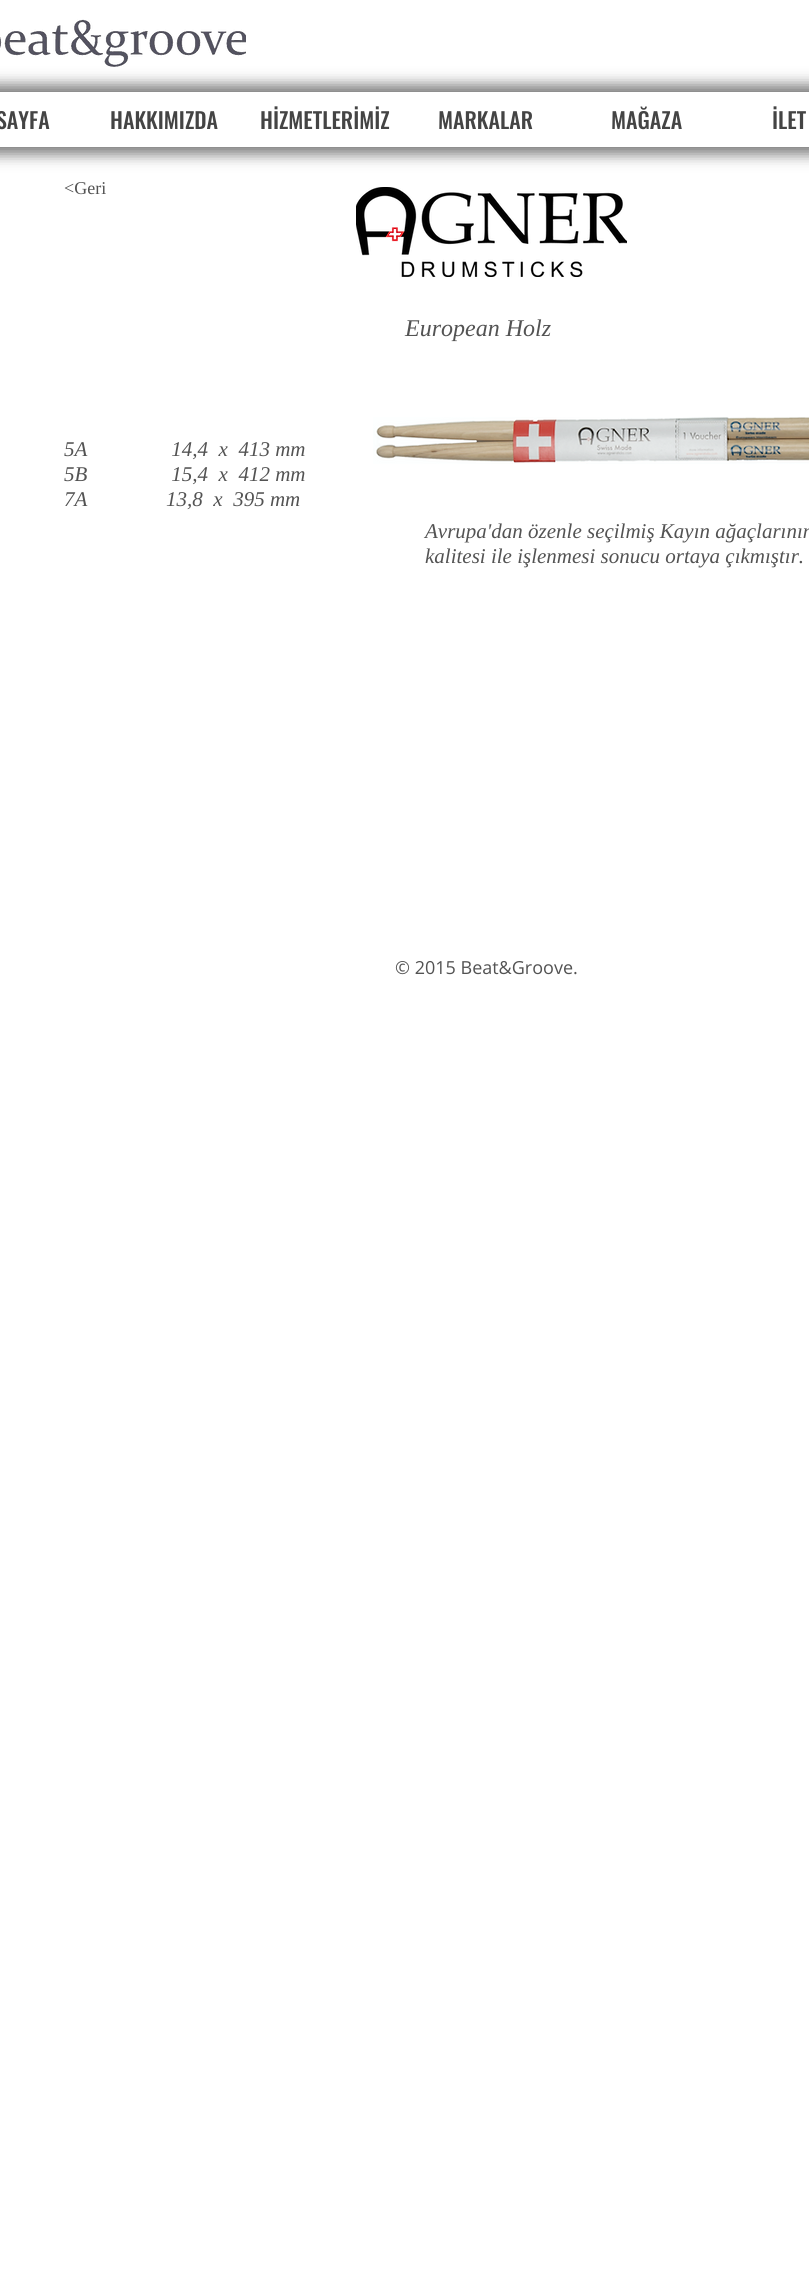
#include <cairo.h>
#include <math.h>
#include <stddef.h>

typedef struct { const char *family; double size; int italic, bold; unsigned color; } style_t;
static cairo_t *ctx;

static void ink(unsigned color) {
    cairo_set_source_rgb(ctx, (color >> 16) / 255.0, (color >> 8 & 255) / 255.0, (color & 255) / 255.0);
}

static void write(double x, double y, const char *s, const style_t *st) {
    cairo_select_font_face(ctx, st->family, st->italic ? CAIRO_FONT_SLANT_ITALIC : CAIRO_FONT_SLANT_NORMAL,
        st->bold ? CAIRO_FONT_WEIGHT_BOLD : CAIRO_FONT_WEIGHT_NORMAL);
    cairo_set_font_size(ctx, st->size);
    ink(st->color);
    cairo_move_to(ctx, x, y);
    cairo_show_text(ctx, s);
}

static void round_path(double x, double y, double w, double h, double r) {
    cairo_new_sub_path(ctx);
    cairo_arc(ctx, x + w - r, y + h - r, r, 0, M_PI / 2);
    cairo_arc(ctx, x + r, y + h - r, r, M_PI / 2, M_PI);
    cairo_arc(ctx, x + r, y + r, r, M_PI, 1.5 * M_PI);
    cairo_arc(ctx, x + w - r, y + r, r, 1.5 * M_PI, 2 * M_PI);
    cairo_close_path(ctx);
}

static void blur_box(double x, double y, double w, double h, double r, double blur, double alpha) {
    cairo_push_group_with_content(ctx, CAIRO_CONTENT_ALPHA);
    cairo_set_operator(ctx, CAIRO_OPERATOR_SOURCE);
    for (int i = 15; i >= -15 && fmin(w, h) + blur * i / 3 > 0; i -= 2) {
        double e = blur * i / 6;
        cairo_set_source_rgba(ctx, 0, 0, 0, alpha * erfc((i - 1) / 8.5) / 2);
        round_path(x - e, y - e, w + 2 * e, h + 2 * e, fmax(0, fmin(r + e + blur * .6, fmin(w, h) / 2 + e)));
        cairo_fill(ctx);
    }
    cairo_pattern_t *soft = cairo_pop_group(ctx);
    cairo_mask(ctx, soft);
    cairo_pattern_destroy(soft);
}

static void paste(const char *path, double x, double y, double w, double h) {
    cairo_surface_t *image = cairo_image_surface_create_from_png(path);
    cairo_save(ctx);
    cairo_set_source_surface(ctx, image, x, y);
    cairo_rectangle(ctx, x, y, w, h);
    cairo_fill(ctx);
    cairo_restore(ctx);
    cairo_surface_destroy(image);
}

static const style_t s1 = {"Oswald Medium", 22, 0, 0, 0x444444};
static const style_t s2 = {"Liberation Serif", 18, 0, 0, 0x535353};
static const style_t s3 = {"Liberation Serif", 24, 1, 0, 0x535353};
static const style_t s4 = {"Liberation Serif", 21, 1, 0, 0x535353};
static const style_t s5 = {"Open Sans", 18, 0, 0, 0x535353};

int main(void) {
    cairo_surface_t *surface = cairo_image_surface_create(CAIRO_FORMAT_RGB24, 809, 2281);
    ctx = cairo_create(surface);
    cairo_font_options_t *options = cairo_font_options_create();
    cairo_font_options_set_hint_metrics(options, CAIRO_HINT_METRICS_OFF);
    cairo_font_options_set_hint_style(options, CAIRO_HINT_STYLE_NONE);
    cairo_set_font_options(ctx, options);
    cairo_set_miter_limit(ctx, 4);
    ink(0xffffff);
    cairo_paint(ctx);
    paste("pic1.png", 0, 19, 246, 48);
    cairo_save(ctx);
    cairo_set_fill_rule(ctx, CAIRO_FILL_RULE_EVEN_ODD);
    cairo_new_path(ctx);
    cairo_move_to(ctx, 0, 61);
    cairo_line_to(ctx, 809, 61);
    cairo_line_to(ctx, 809, 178);
    cairo_line_to(ctx, 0, 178);
    cairo_close_path(ctx);
    cairo_move_to(ctx, 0, 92);
    cairo_line_to(ctx, 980, 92);
    cairo_line_to(ctx, 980, 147);
    cairo_line_to(ctx, 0, 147);
    cairo_close_path(ctx);
    cairo_clip(ctx);
    ink(0x000000);
    blur_box(-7, 85, 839, 69, 0, 7.5, 0.54);
    cairo_restore(ctx);
    write(-4, 129, "SAYFA", &s1);
    write(110, 129, "HAKKIMIZDA", &s1);
    write(260, 129, "HİZMETLERİMİZ", &s1);
    write(438, 129, "MARKALAR", &s1);
    write(611, 129, "MAĞAZA", &s1);
    write(772, 129, "İLET", &s1);
    write(64, 194, "<Geri", &s2);
    paste("pic2.png", 356, 187, 271, 90);
    write(405, 336, "European Holz", &s3);
    write(64, 456, "5A                14,4  x  413 mm", &s4);
    write(64, 481, "5B                15,4  x  412 mm", &s4);
    write(64, 506, "7A               13,8  x  395 mm", &s4);
    paste("pic3.png", 373, 417, 436, 47);
    write(425, 538, "Avrupa'dan özenle seçilmiş Kayın ağaçlarının", &s4);
    write(425, 563, "kalitesi ile işlenmesi sonucu ortaya çıkmıştır.", &s4);
    write(395, 974, "© 2015 Beat&Groove.", &s5);
    cairo_surface_write_to_png(surface, "screenshot.png");
    cairo_font_options_destroy(options);
    cairo_destroy(ctx);
    cairo_surface_destroy(surface);
    return 0;
}
